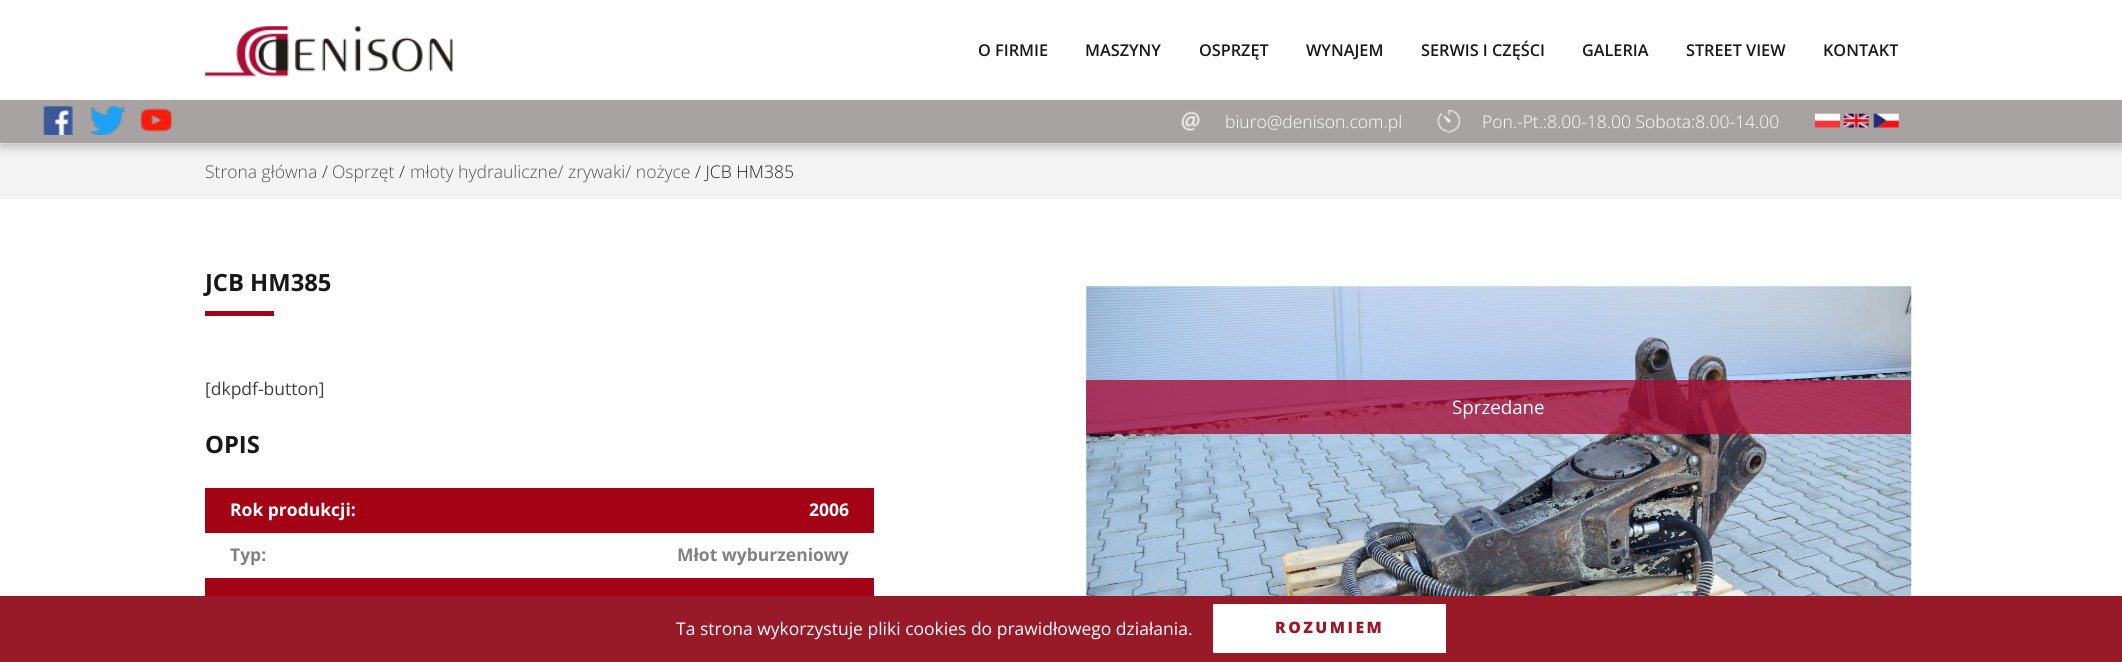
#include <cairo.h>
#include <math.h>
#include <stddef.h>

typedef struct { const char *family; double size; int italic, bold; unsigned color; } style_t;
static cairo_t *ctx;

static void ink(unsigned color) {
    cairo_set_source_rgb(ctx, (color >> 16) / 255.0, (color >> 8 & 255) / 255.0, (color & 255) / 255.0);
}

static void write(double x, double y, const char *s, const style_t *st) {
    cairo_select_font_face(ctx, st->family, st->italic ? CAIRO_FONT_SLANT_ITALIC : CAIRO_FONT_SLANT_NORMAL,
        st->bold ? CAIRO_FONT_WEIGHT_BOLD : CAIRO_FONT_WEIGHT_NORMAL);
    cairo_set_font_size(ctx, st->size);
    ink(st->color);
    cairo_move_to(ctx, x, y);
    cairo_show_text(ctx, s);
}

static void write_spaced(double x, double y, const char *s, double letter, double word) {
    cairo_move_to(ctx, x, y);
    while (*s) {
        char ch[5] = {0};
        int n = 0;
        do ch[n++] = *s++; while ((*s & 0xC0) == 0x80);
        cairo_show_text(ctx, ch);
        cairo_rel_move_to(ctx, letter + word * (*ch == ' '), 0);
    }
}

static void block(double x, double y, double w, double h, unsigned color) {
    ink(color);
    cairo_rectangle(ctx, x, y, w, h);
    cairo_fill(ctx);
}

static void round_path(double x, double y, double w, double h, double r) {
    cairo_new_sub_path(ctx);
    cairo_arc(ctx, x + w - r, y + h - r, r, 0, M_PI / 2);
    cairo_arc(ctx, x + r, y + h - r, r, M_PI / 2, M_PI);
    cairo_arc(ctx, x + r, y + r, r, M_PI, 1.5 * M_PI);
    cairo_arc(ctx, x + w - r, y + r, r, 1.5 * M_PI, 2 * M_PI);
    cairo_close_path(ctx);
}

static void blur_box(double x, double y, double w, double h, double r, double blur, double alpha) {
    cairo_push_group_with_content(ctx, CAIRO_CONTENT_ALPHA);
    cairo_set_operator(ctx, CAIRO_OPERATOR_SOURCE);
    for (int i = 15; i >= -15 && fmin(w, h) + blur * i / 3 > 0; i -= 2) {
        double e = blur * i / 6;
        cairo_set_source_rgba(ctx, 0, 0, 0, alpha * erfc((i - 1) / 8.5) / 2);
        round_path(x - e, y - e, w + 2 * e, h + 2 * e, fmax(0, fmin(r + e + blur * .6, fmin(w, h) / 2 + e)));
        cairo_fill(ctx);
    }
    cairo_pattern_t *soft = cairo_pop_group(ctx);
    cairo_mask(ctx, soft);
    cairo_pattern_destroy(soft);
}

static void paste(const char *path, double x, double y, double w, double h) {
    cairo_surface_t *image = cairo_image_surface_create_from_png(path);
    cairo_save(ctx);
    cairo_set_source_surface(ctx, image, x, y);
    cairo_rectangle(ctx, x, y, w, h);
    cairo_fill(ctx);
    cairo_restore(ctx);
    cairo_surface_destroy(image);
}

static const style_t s1 = {"Open Sans SemiBold", 16.25, 0, 0, 0x181818};
static const style_t s2 = {"Open Sans Light", 17.5, 0, 0, 0xffffff};
static const style_t s3 = {"Open Sans Light", 17.5, 0, 0, 0x525252};
static const style_t s4 = {"Open Sans Light", 17.5, 0, 0, 0x242424};
static const style_t s5 = {"Open Sans", 23.75, 0, 1, 0x181818};
static const style_t s6 = {"Open Sans", 17.5, 0, 0, 0x404040};
static const style_t s7 = {"Open Sans", 17.5, 0, 1, 0xffffff};
static const style_t s8 = {"Open Sans", 17.5, 0, 1, 0x818181};
static const style_t s9 = {"Open Sans", 18.75, 0, 0, 0xffffff};
static const style_t s10 = {"Open Sans", 17.5, 0, 0, 0xffffff};

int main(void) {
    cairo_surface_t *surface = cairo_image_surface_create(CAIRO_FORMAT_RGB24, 2122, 662);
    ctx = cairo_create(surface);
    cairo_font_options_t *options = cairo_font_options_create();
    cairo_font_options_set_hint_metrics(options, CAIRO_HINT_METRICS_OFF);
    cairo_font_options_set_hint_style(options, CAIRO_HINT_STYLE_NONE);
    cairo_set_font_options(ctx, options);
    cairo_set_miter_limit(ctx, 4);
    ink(0xffffff);
    cairo_paint(ctx);
    paste("pic1.png", 205, 26, 248, 51);
    write(978, 56, "O FIRMIE", &s1);
    write(1085, 56, "MASZYNY", &s1);
    write(1199, 56, "OSPRZĘT", &s1);
    write(1306, 56, "WYNAJEM", &s1);
    write(1421, 56, "SERWIS I CZĘŚCI", &s1);
    write(1582, 56, "GALERIA", &s1);
    write(1686, 56, "STREET VIEW", &s1);
    write(1823, 56, "KONTAKT", &s1);
    block(0, 144, 2122, 55, 0xf4f4f4);
    ink(0x000000);
    blur_box(0, 105, 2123, 43, 0, 4.5, 0.21);
    block(0, 100, 2122, 43, 0xa7a3a3);
    paste("pic2.png", 43, 106, 30, 29);
    paste("pic3.png", 89, 106, 37, 29);
    paste("pic4.png", 140, 108, 32, 24);
    paste("pic5.png", 1181, 111, 19, 21);
    write(1225, 128, "biuro@denison.com.pl", &s2);
    paste("pic6.png", 1437, 110, 23, 23);
    write(1482, 128, "Pon.-Pt.:8.00-18.00 Sobota:8.00-14.00", &s2);
    paste("pic7.png", 1815, 113, 25, 15);
    paste("pic8.png", 1843, 113, 26, 15);
    paste("pic9.png", 1873, 113, 26, 15);
    write(205, 178, "Strona główna", &s3);
    write(322, 178, "/", &s4);
    write(332, 178, "Osprzęt", &s3);
    write(399, 178, "/", &s4);
    write(410, 178, "młoty hydrauliczne/ zrywaki/ nożyce", &s3);
    write(695, 178, "/ JCB HM385", &s4);
    write(205, 291, "JCB HM385", &s5);
    block(205, 311, 69, 5, 0xa30314);
    write(205, 395, "[dkpdf-button]", &s6);
    write(205, 453, "OPIS", &s5);
    block(205, 488, 669, 45, 0xa30314);
    write(230, 516, "Rok produkcji:", &s7);
    write(809, 516, "2006", &s7);
    write(230, 561, "Typ:", &s8);
    write(677, 561, "Młot wyburzeniowy", &s8);
    block(205, 578, 669, 18, 0xa30314);
    paste("pic10.png", 1086, 286, 826, 310);
    cairo_set_source_rgba(ctx, 0.659, 0.051, 0.212, 0.78);
    cairo_rectangle(ctx, 1086, 380, 825, 54);
    cairo_fill(ctx);
    write(1452, 414, "Sprzedane", &s9);
    block(0, 596, 2122, 66, 0x981928);
    write(676, 635, "Ta strona wykorzystuje pliki cookies do prawidłowego działania.", &s10);
    block(1213, 604, 233, 49, 0xffffff);
    cairo_select_font_face(ctx, "Open Sans ExtraBold", CAIRO_FONT_SLANT_NORMAL, CAIRO_FONT_WEIGHT_NORMAL);
    cairo_set_font_size(ctx, 15.75);
    ink(0x981928);
    write_spaced(1275, 633, "ROZUMIEM", 2.5, 0);
    cairo_surface_write_to_png(surface, "screenshot.png");
    cairo_font_options_destroy(options);
    cairo_destroy(ctx);
    cairo_surface_destroy(surface);
    return 0;
}
